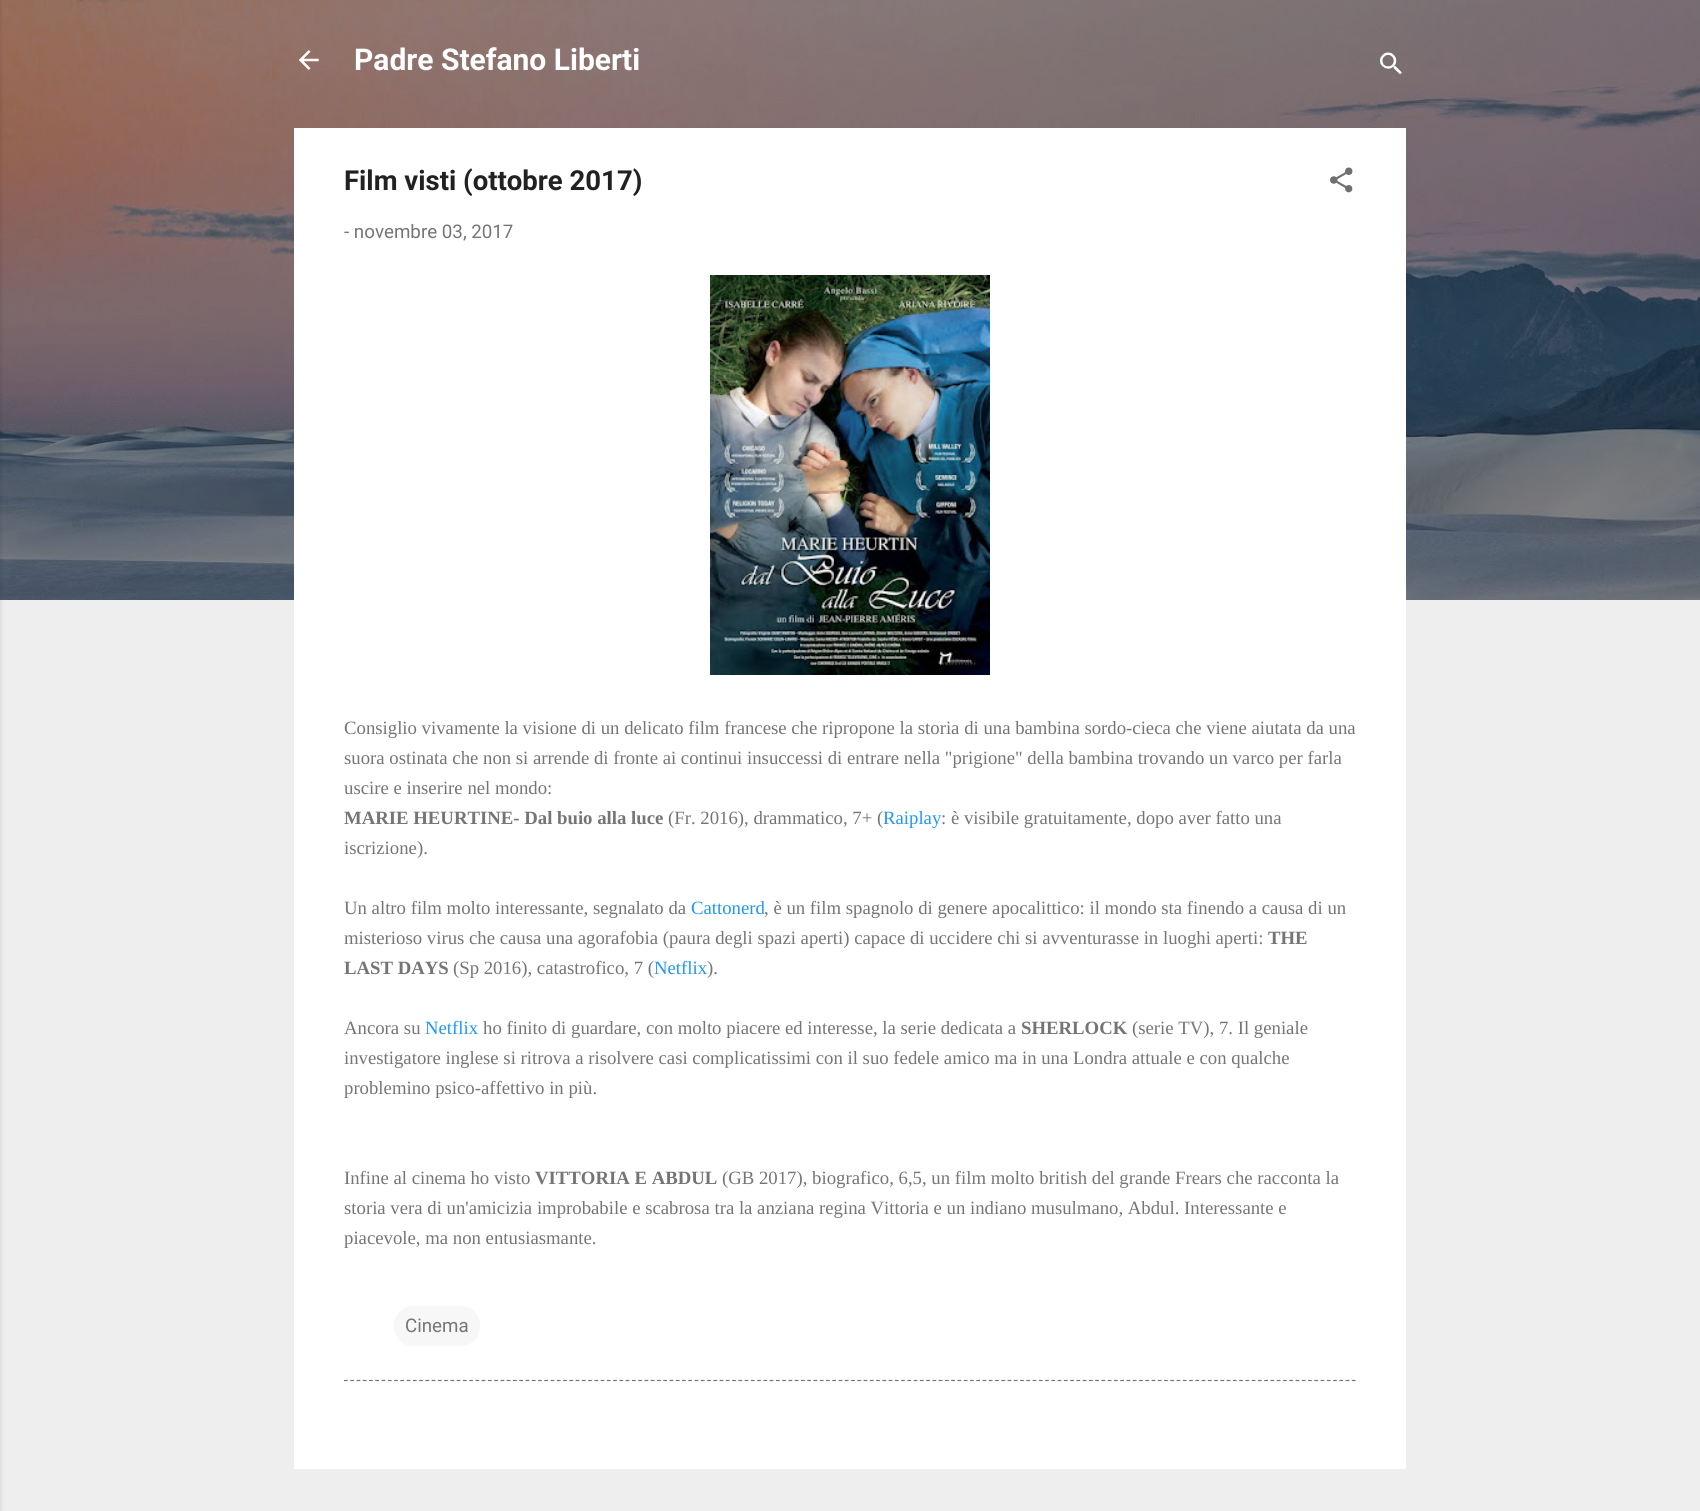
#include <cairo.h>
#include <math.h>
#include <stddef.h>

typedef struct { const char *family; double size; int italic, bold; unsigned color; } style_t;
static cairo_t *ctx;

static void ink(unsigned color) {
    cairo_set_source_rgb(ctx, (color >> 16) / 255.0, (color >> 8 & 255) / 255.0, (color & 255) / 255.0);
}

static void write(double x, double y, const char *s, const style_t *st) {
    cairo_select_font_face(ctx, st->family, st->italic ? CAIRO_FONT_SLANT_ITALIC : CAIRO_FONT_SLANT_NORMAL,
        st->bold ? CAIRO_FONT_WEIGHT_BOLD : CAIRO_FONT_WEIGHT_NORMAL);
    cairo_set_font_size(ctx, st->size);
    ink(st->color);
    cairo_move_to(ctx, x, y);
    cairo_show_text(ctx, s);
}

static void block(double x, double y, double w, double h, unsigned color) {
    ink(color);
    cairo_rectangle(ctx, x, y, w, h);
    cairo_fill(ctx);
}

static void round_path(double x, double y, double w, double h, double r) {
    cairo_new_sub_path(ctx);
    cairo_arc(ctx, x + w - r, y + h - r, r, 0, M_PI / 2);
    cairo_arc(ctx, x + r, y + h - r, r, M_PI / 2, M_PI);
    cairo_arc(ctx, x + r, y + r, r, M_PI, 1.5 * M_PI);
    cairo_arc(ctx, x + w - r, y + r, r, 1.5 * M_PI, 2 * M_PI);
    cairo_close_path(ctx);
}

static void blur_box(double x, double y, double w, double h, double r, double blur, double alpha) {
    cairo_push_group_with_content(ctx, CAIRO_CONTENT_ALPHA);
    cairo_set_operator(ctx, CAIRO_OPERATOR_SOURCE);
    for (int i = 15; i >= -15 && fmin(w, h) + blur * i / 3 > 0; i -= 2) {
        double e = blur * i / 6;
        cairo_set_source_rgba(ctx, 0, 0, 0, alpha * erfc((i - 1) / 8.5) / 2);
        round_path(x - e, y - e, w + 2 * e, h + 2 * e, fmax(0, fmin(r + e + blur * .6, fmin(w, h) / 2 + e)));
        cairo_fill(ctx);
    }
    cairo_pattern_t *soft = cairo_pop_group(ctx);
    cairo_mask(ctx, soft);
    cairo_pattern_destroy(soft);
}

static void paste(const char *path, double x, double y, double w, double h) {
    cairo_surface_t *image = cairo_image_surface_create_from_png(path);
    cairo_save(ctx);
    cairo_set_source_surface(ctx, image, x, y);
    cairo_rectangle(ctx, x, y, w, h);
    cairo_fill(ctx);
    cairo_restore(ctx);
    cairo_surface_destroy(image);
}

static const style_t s1 = {"Roboto", 30, 0, 1, 0xffffff};
static const style_t s2 = {"Roboto", 27.5, 0, 1, 0x212121};
static const style_t s3 = {"Roboto", 18.75, 0, 0, 0x757575};
static const style_t s4 = {"Liberation Serif", 18.75, 0, 0, 0x757575};
static const style_t s5 = {"Liberation Serif", 18.75, 0, 1, 0x757575};
static const style_t s6 = {"Liberation Serif", 18.75, 0, 0, 0x2196f3};

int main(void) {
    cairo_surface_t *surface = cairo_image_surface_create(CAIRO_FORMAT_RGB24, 1700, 1511);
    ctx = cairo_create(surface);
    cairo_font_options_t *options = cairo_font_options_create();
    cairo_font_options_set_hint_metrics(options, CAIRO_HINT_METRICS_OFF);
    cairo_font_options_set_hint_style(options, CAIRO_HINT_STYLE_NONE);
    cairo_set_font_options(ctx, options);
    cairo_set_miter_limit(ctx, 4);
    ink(0xeeeeee);
    cairo_paint(ctx);
    paste("pic1.png", 0, 0, 1700, 600);
    ink(0x000000);
    blur_box(-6, 1, 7, 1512, 0, 2, 0.1);
    paste("pic2.png", 299, 50, 20, 20);
    write(354, 70, "Padre Stefano Liberti", &s1);
    paste("pic3.png", 1380, 52, 22, 23);
    block(294, 128, 1112, 1341, 0xffffff);
    write(344, 190, "Film visti (ottobre 2017)", &s2);
    paste("pic4.png", 1330, 167, 23, 26);
    write(344, 238, "- novembre 03, 2017", &s3);
    paste("pic5.png", 710, 275, 280, 400);
    write(344, 734, "Consiglio vivamente la visione di un delicato film francese che ripropone la storia di una bambina sordo-cieca che viene aiutata da una", &s4);
    write(344, 764, "suora ostinata che non si arrende di fronte ai continui insuccessi di entrare nella \"prigione\" della bambina trovando un varco per farla", &s4);
    write(344, 794, "uscire e inserire nel mondo:", &s4);
    write(344, 824, "MARIE HEURTINE- Dal buio alla luce", &s5);
    write(668, 824, "(Fr. 2016), drammatico, 7+ (", &s4);
    write(883, 824, "Raiplay", &s6);
    write(941, 824, ": è visibile gratuitamente, dopo aver fatto una", &s4);
    write(344, 854, "iscrizione).", &s4);
    write(344, 914, "Un altro film molto interessante, segnalato da", &s4);
    write(691, 914, "Cattonerd", &s6);
    write(764, 914, ", è un film spagnolo di genere apocalittico: il mondo sta finendo a causa di un", &s4);
    write(344, 944, "misterioso virus che causa una agorafobia (paura degli spazi aperti) capace di uccidere chi si avventurasse in luoghi aperti:", &s4);
    write(1268, 944, "THE", &s5);
    write(344, 974, "LAST DAYS", &s5);
    write(453, 974, "(Sp 2016), catastrofico, 7 (", &s4);
    write(654, 974, "Netflix", &s6);
    write(707, 974, ").", &s4);
    write(344, 1034, "Ancora su", &s4);
    write(425, 1034, "Netflix", &s6);
    write(483, 1034, "ho finito di guardare, con molto piacere ed interesse, la serie dedicata a", &s4);
    write(1021, 1034, "SHERLOCK", &s5);
    write(1132, 1034, "(serie TV), 7. Il geniale", &s4);
    write(344, 1064, "investigatore inglese si ritrova a risolvere casi complicatissimi con il suo fedele amico ma in una Londra attuale e con qualche", &s4);
    write(344, 1094, "problemino psico-affettivo in più.", &s4);
    write(344, 1184, "Infine al cinema ho visto", &s4);
    write(535, 1184, "VITTORIA E ABDUL", &s5);
    write(722, 1184, "(GB 2017), biografico, 6,5, un film molto british del grande Frears che racconta la", &s4);
    write(344, 1214, "storia vera di un'amicizia improbabile e scabrosa tra la anziana regina Vittoria e un indiano musulmano, Abdul. Interessante e", &s4);
    write(344, 1244, "piacevole, ma non entusiasmante.", &s4);
    ink(0xf7f7f7);
    round_path(394, 1306, 86, 40, 19);
    cairo_fill(ctx);
    write(405, 1332, "Cinema", &s3);
    cairo_new_path(ctx);
    cairo_move_to(ctx, 344, 1380.5);
    cairo_line_to(ctx, 1356, 1380.5);
    cairo_set_line_width(ctx, 1.2);
    cairo_set_dash(ctx, (double[]){3.75, 2.51}, 2, 0);
    cairo_stroke(ctx);
    cairo_surface_write_to_png(surface, "screenshot.png");
    cairo_font_options_destroy(options);
    cairo_destroy(ctx);
    cairo_surface_destroy(surface);
    return 0;
}
